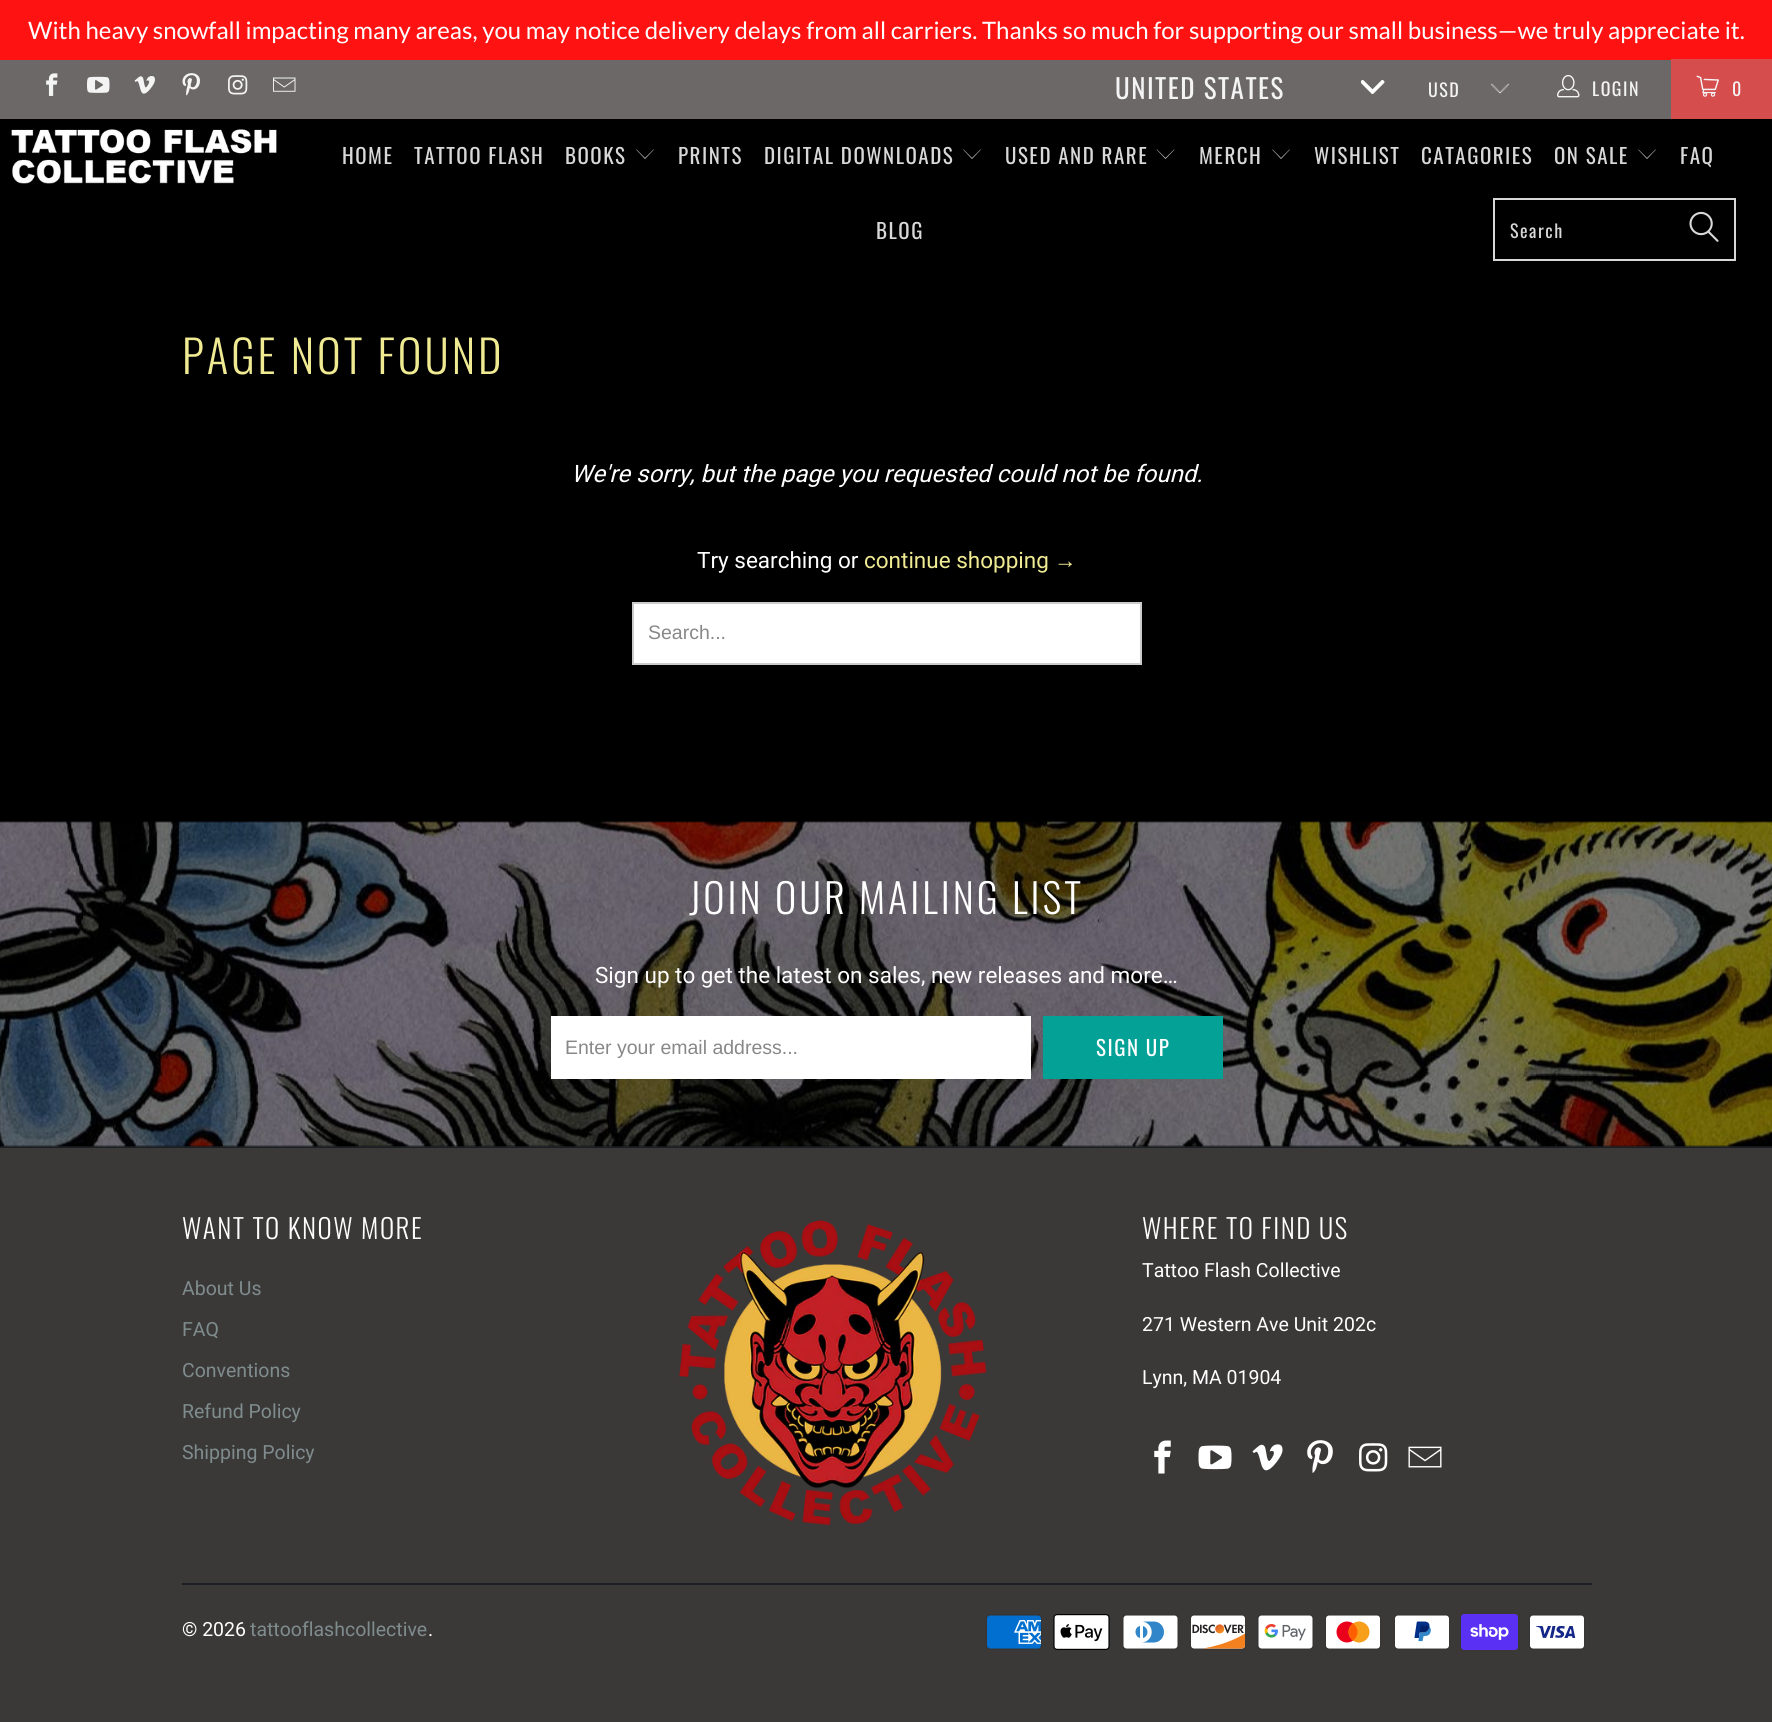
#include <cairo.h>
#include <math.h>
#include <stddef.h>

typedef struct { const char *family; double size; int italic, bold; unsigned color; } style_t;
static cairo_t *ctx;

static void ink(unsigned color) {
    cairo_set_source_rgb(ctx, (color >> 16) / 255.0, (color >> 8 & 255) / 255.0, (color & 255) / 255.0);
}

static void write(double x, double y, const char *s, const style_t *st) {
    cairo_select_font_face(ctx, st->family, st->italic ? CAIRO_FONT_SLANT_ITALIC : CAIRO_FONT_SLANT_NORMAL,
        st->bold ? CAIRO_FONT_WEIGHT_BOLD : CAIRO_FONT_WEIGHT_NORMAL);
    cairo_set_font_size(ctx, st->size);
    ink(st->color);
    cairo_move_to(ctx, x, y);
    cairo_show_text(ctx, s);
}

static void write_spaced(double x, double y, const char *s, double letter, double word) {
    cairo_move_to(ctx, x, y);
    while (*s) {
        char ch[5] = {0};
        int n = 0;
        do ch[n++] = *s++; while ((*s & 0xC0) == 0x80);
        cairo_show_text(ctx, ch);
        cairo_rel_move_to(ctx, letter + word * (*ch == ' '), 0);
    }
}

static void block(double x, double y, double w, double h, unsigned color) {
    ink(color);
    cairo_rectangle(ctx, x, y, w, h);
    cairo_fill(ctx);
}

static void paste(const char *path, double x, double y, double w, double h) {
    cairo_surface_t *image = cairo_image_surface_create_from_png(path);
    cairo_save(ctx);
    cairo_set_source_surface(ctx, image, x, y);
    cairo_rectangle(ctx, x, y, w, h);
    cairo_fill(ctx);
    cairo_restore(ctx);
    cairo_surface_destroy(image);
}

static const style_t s1 = {"Lato", 24, 0, 0, 0xffffff};
static const style_t s2 = {"Roboto", 24, 1, 0, 0xffffff};
static const style_t s3 = {"Roboto", 22.5, 0, 0, 0xffffff};
static const style_t s4 = {"Roboto", 22.5, 0, 0, 0xf0eb93};
static const style_t s5 = {"Liberation Serif", 22.5, 0, 0, 0xf0eb93};
static const style_t s6 = {"Liberation Sans", 19.5, 0, 0, 0x888888};
static const style_t s7 = {"Roboto", 19.5, 0, 0, 0x7f8c8d};
static const style_t s8 = {"Roboto", 19.5, 0, 0, 0xffffff};

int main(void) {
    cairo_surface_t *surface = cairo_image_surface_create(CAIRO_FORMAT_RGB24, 1772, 1722);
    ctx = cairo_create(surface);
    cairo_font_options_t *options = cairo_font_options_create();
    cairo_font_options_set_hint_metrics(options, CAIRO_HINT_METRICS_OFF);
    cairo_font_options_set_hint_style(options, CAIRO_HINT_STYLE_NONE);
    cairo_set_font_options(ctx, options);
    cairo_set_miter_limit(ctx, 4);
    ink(0x000000);
    cairo_paint(ctx);
    block(0, 0, 1772, 60, 0xff1212);
    write(28, 39, "With heavy snowfall impacting many areas, you may notice delivery delays from all carriers. Thanks so much for supporting our small business—we truly appreciate it.", &s1);
    block(0, 60, 1671, 59, 0x6c6868);
    paste("pic1.png", 46, 73, 12, 23);
    paste("pic2.png", 87, 76, 23, 17);
    paste("pic3.png", 134, 76, 21, 18);
    paste("pic4.png", 182, 73, 18, 23);
    paste("pic5.png", 228, 75, 20, 20);
    paste("pic6.png", 273, 77, 23, 15);
    cairo_select_font_face(ctx, "Oswald", CAIRO_FONT_SLANT_NORMAL, CAIRO_FONT_WEIGHT_NORMAL);
    cairo_set_font_size(ctx, 27);
    ink(0xf4f4f4);
    write_spaced(1115, 99, "UNITED STATES", 1.5, 0);
    paste("pic7.png", 1361, 79, 24, 16);
    paste("pic8.png", 1491, 83, 19, 11);
    cairo_set_font_size(ctx, 18);
    write_spaced(1428, 97, "USD", 1.5, 0);
    paste("pic9.png", 1557, 74, 23, 24);
    write_spaced(1592, 96, "LOGIN", 1.5, 0);
    block(1671, 59, 101, 60, 0xd54d4d);
    paste("pic10.png", 1696, 75, 23, 22);
    ink(0xf4f4f4);
    write_spaced(1732, 96, "0", 1.5, 0);
    paste("pic11.png", 11, 129, 266, 55);
    cairo_set_font_size(ctx, 21);
    ink(0xd8d8d8);
    write_spaced(342, 164, "HOME", 1.5, 0);
    write_spaced(414, 164, "TATTOO FLASH", 1.5, 0);
    write_spaced(565, 164, "BOOKS", 1.5, 0);
    cairo_new_path(ctx);
    cairo_move_to(ctx, 645, 159);
    cairo_line_to(ctx, 636, 149.5);
    cairo_line_to(ctx, 636.5, 149.5);
    cairo_line_to(ctx, 645, 158);
    cairo_line_to(ctx, 653.5, 149.5);
    cairo_line_to(ctx, 654, 149.5);
    cairo_close_path(ctx);
    cairo_fill(ctx);
    write_spaced(678, 164, "PRINTS", 1.5, 0);
    write_spaced(764, 164, "DIGITAL DOWNLOADS", 1.5, 0);
    cairo_new_path(ctx);
    cairo_move_to(ctx, 972, 159);
    cairo_line_to(ctx, 963, 149.5);
    cairo_line_to(ctx, 963.5, 149.5);
    cairo_line_to(ctx, 972, 158);
    cairo_line_to(ctx, 980.5, 149.5);
    cairo_line_to(ctx, 981, 149.5);
    cairo_close_path(ctx);
    cairo_fill(ctx);
    write_spaced(1005, 164, "USED AND RARE", 1.5, 0);
    cairo_new_path(ctx);
    cairo_move_to(ctx, 1165.5, 159);
    cairo_line_to(ctx, 1156.5, 149.5);
    cairo_line_to(ctx, 1157, 149.5);
    cairo_line_to(ctx, 1165.5, 158);
    cairo_line_to(ctx, 1174, 149.5);
    cairo_line_to(ctx, 1174.5, 149.5);
    cairo_close_path(ctx);
    cairo_fill(ctx);
    write_spaced(1199, 164, "MERCH", 1.5, 0);
    cairo_new_path(ctx);
    cairo_move_to(ctx, 1281, 159);
    cairo_line_to(ctx, 1272, 149.5);
    cairo_line_to(ctx, 1272.5, 149.5);
    cairo_line_to(ctx, 1281, 158);
    cairo_line_to(ctx, 1289.5, 149.5);
    cairo_line_to(ctx, 1290, 149.5);
    cairo_close_path(ctx);
    cairo_fill(ctx);
    write_spaced(1314, 164, "WISHLIST", 1.5, 0);
    write_spaced(1421, 164, "CATAGORIES", 1.5, 0);
    write_spaced(1554, 164, "ON SALE", 1.5, 0);
    cairo_new_path(ctx);
    cairo_move_to(ctx, 1647, 159);
    cairo_line_to(ctx, 1638, 149.5);
    cairo_line_to(ctx, 1638.5, 149.5);
    cairo_line_to(ctx, 1647, 158);
    cairo_line_to(ctx, 1655.5, 149.5);
    cairo_line_to(ctx, 1656, 149.5);
    cairo_close_path(ctx);
    cairo_fill(ctx);
    write_spaced(1680, 164, "FAQ", 1.5, 0);
    write_spaced(876, 239, "BLOG", 1.5, 0);
    cairo_rectangle(ctx, 1494, 199, 241, 61);
    cairo_stroke(ctx);
    cairo_set_font_size(ctx, 18);
    write_spaced(1510, 238, "Search", 1.5, 0);
    paste("pic12.png", 1689, 211, 30, 31);
    cairo_select_font_face(ctx, "Oswald Light", CAIRO_FONT_SLANT_NORMAL, CAIRO_FONT_WEIGHT_NORMAL);
    cairo_set_font_size(ctx, 45);
    ink(0xf0eb93);
    write_spaced(182, 374, "PAGE NOT FOUND", 3, 0);
    write(571, 482, "We're sorry, but the page you requested could not be found.", &s2);
    write(697, 568, "Try searching or", &s3);
    write(864, 568, "continue shopping", &s4);
    write(1054, 568, "→", &s5);
    ink(0xffffff);
    cairo_rectangle(ctx, 633, 603, 508, 61);
    cairo_fill_preserve(ctx);
    ink(0xcccccc);
    cairo_stroke(ctx);
    write(648, 639, "Search...", &s6);
    block(0, 1146, 1772, 2, 0x1b1f23);
    paste("pic13.png", 0, 821, 1772, 326);
    cairo_select_font_face(ctx, "Oswald Light", CAIRO_FONT_SLANT_NORMAL, CAIRO_FONT_WEIGHT_NORMAL);
    cairo_set_font_size(ctx, 40.5);
    ink(0xffffff);
    write_spaced(689, 914, "JOIN OUR MAILING LIST", 3, 0);
    write(595, 983, "Sign up to get the latest on sales, new releases and more…", &s3);
    block(551, 1016, 480, 63, 0xffffff);
    write(565, 1054, "Enter your email address...", &s6);
    block(1043, 1016, 180, 63, 0x03a196);
    cairo_select_font_face(ctx, "Oswald", CAIRO_FONT_SLANT_NORMAL, CAIRO_FONT_WEIGHT_NORMAL);
    cairo_set_font_size(ctx, 21);
    ink(0xffffff);
    write_spaced(1096, 1056, "SIGN UP", 1.5, 0);
    block(0, 1148, 1772, 574, 0x3b3838);
    cairo_select_font_face(ctx, "Oswald Light", CAIRO_FONT_SLANT_NORMAL, CAIRO_FONT_WEIGHT_NORMAL);
    cairo_set_font_size(ctx, 27);
    ink(0xffffff);
    write_spaced(182, 1239, "WANT TO KNOW MORE", 1.5, 0);
    write(182, 1295, "About Us", &s7);
    write(182, 1336, "FAQ", &s7);
    write(182, 1377, "Conventions", &s7);
    write(182, 1418, "Refund Policy", &s7);
    write(182, 1459, "Shipping Policy", &s7);
    paste("pic14.png", 679, 1220, 308, 306);
    cairo_select_font_face(ctx, "Oswald Light", CAIRO_FONT_SLANT_NORMAL, CAIRO_FONT_WEIGHT_NORMAL);
    cairo_set_font_size(ctx, 27);
    ink(0xffffff);
    write_spaced(1142, 1239, "WHERE TO FIND US", 1.5, 0);
    write(1142, 1277, "Tattoo Flash Collective", &s8);
    write(1142, 1331, "271 Western Ave Unit 202c", &s8);
    write(1142, 1384, "Lynn, MA 01904", &s8);
    paste("pic15.png", 1154, 1440, 17, 34);
    paste("pic16.png", 1198, 1445, 34, 25);
    paste("pic17.png", 1252, 1444, 31, 27);
    paste("pic18.png", 1307, 1440, 26, 33);
    paste("pic19.png", 1359, 1443, 29, 29);
    paste("pic20.png", 1408, 1446, 34, 22);
    block(182, 1583, 1410, 2, 0x1b1f23);
    write(182, 1636, "© 2026", &s8);
    write(250, 1636, "tattooflashcollective", &s7);
    write(428, 1636, ".", &s8);
    paste("pic21.png", 986, 1614, 56, 36);
    paste("pic22.png", 1053, 1614, 57, 36);
    paste("pic23.png", 1122, 1614, 57, 36);
    paste("pic24.png", 1190, 1614, 56, 36);
    paste("pic25.png", 1257, 1614, 57, 36);
    paste("pic26.png", 1325, 1614, 56, 36);
    paste("pic27.png", 1394, 1614, 56, 36);
    paste("pic28.png", 1461, 1614, 57, 36);
    paste("pic29.png", 1529, 1614, 56, 36);
    cairo_surface_write_to_png(surface, "screenshot.png");
    cairo_font_options_destroy(options);
    cairo_destroy(ctx);
    cairo_surface_destroy(surface);
    return 0;
}
